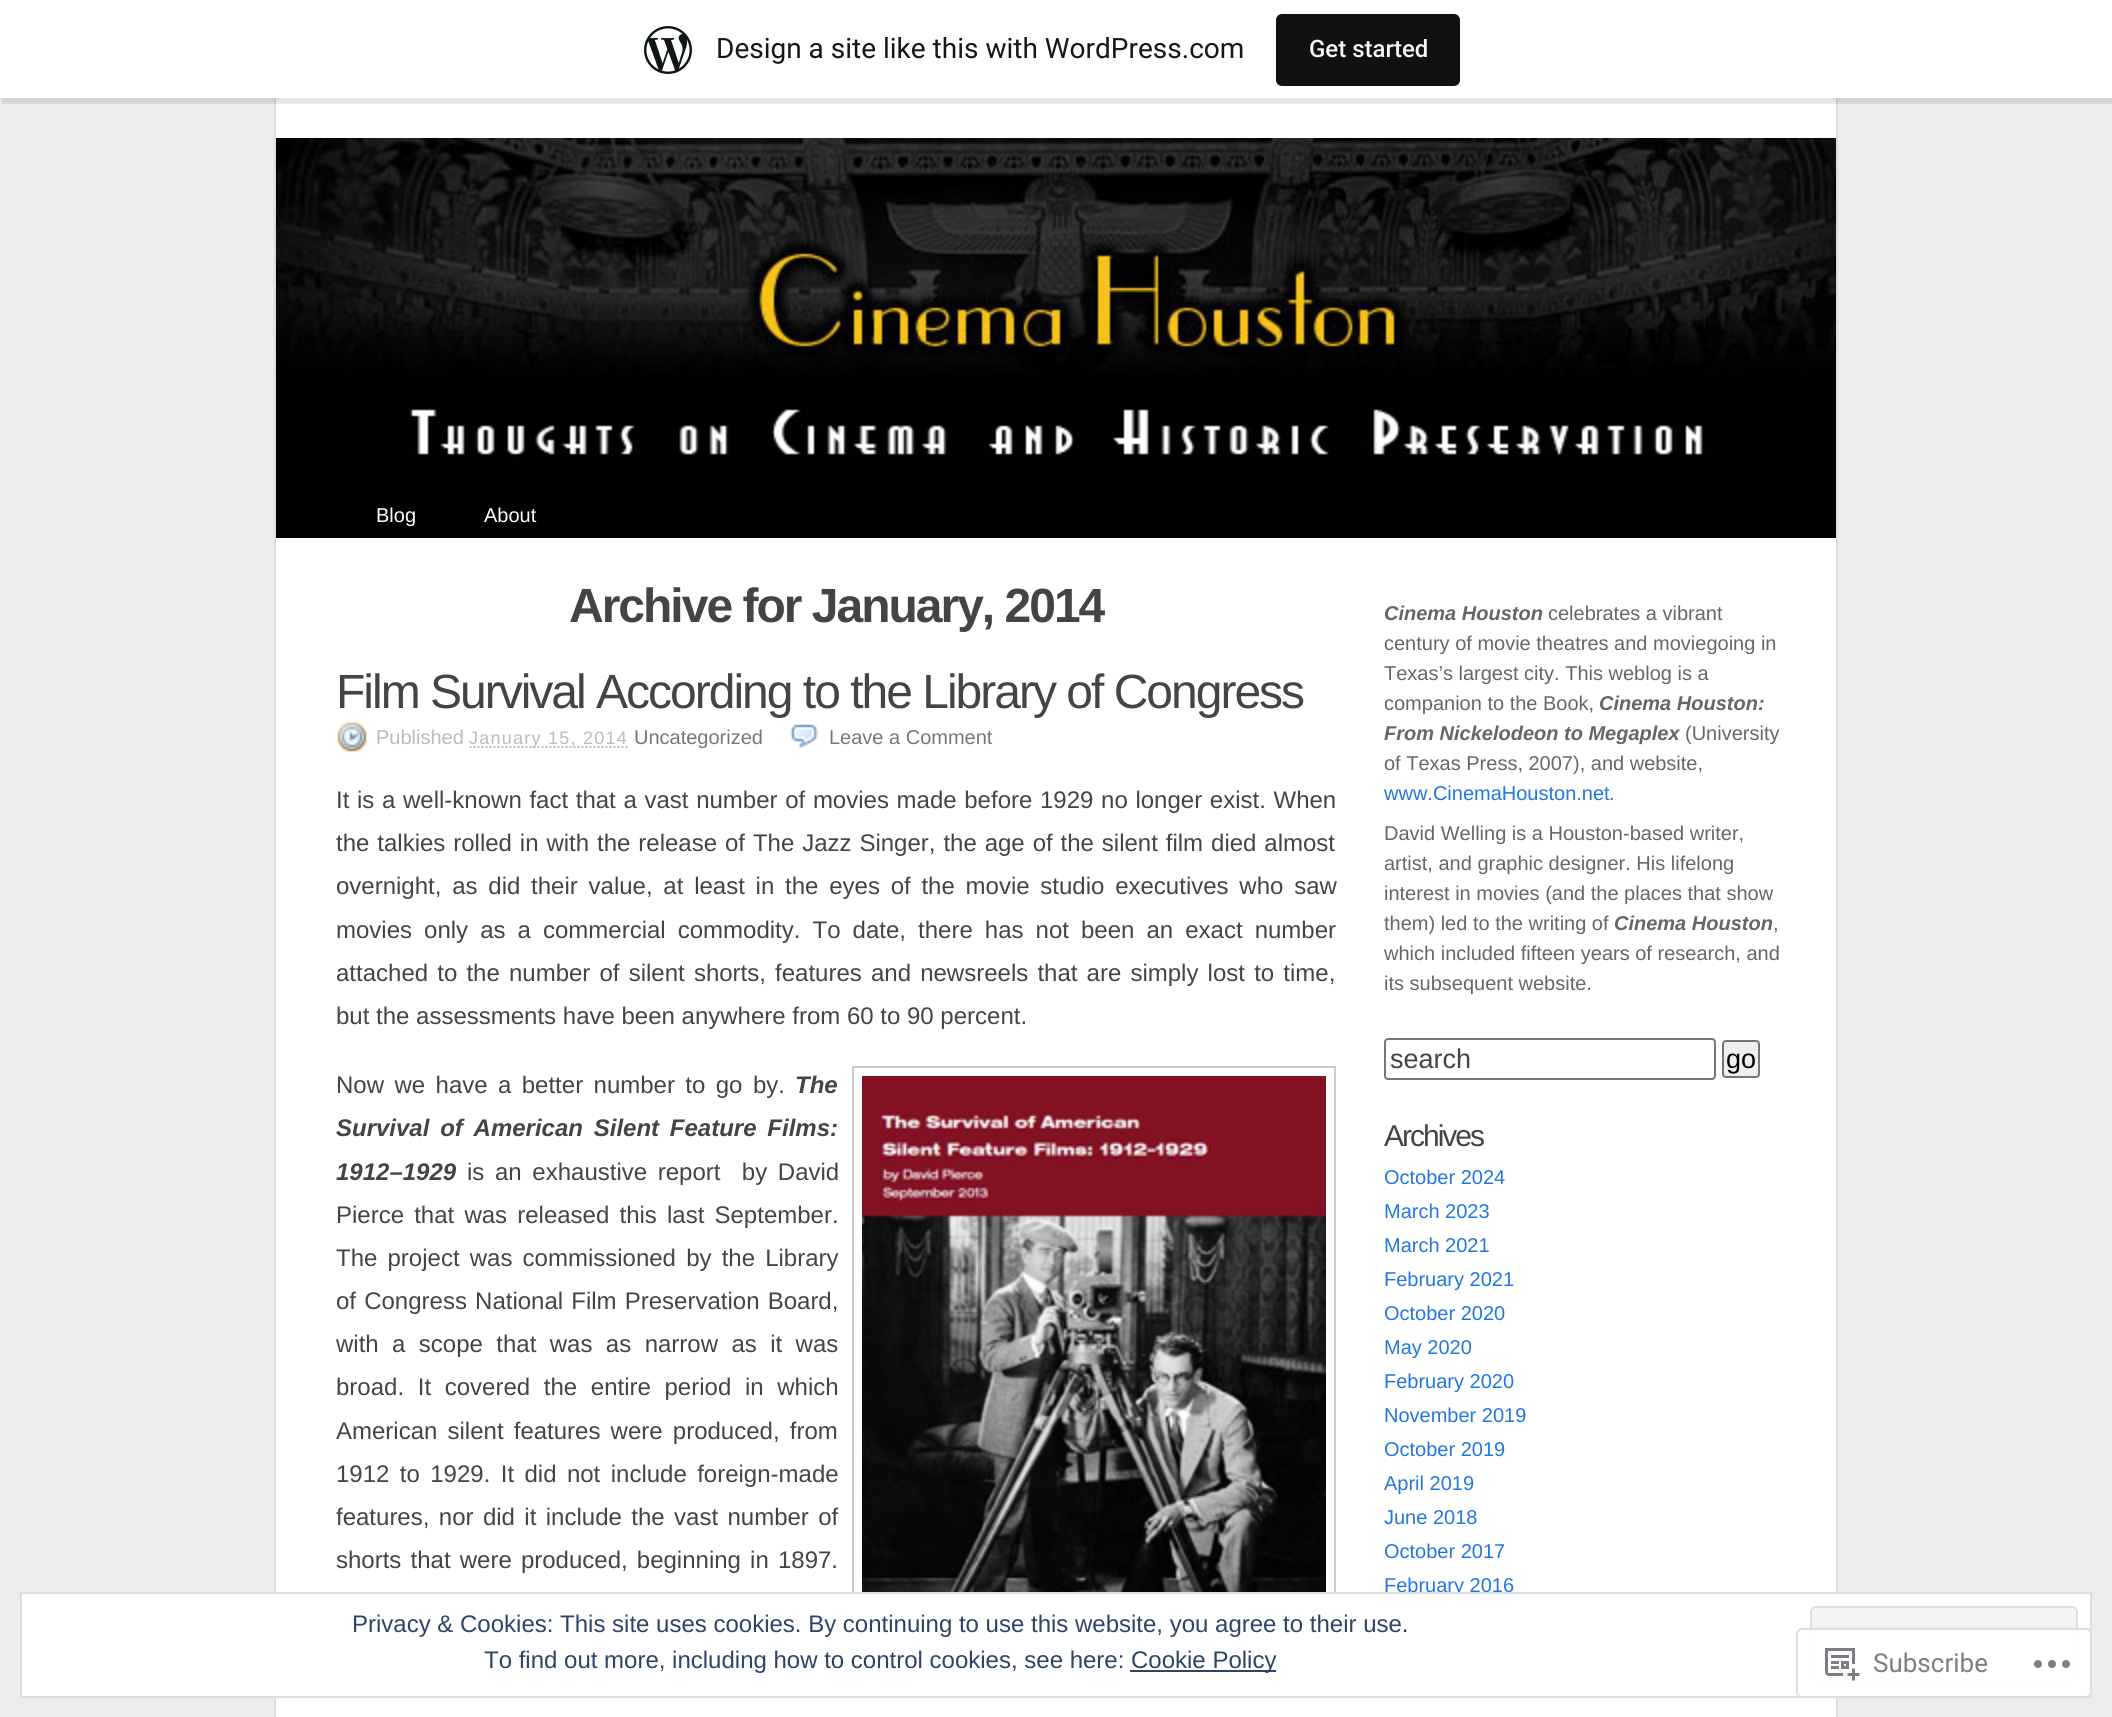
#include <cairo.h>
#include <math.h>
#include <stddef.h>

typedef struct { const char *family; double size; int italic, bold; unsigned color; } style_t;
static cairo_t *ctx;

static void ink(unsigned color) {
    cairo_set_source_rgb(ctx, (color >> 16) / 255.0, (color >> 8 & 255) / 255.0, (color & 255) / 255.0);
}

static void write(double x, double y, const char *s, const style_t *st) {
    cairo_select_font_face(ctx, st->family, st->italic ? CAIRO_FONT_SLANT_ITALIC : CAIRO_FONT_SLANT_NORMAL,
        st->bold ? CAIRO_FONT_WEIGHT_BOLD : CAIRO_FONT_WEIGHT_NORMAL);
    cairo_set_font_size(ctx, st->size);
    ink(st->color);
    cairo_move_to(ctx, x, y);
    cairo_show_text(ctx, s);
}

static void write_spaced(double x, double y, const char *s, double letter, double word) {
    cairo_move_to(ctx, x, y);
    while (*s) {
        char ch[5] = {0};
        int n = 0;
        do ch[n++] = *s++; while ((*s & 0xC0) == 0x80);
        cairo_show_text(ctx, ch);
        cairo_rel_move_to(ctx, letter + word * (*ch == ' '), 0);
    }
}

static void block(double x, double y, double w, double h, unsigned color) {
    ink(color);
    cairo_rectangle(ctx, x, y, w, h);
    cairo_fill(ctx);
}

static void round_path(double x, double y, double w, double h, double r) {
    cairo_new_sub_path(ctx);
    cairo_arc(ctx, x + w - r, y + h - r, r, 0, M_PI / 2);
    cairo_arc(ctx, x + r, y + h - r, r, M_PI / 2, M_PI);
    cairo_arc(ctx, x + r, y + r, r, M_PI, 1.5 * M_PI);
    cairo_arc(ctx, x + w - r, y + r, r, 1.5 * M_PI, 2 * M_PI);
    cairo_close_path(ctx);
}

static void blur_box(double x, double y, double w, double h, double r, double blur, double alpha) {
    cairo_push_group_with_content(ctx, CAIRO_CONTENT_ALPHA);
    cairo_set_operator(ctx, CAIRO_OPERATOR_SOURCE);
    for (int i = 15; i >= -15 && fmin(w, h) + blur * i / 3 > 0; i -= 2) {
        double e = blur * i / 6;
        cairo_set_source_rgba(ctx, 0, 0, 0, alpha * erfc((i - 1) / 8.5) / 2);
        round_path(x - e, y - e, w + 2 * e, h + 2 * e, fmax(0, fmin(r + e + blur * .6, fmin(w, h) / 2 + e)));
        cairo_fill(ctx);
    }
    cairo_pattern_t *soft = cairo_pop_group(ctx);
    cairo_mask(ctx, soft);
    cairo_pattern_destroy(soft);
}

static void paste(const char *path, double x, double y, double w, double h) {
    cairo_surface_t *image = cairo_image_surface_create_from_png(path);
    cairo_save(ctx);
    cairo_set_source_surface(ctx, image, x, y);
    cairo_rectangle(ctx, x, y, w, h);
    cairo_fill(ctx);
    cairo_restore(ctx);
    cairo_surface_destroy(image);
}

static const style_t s1 = {"Roboto", 28, 0, 0, 0x171717};
static const style_t s2 = {"Roboto Medium", 24, 0, 0, 0xf6f7f7};
static const style_t s3 = {"Liberation Sans", 20, 0, 0, 0xffffff};
static const style_t s4 = {"Liberation Sans", 20, 0, 0, 0xbbbbbb};
static const style_t s5 = {"Liberation Sans", 20, 0, 0, 0x777777};
static const style_t s6 = {"Liberation Sans", 24, 0, 0, 0x444444};
static const style_t s7 = {"Liberation Sans", 24, 1, 1, 0x444444};
static const style_t s8 = {"Liberation Sans", 20, 1, 1, 0x666666};
static const style_t s9 = {"Liberation Sans", 20, 0, 0, 0x666666};
static const style_t s10 = {"Liberation Sans", 20, 0, 0, 0x2277dd};
static const style_t s11 = {"Liberation Sans", 27, 0, 0, 0x444444};
static const style_t s12 = {"Liberation Sans", 27, 0, 0, 0x000000};
static const style_t s13 = {"Liberation Sans", 24, 0, 0, 0x2e4467};
static const style_t s14 = {"Roboto", 26, 0, 0, 0x7b7f84};

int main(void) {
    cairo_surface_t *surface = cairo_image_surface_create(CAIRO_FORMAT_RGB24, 2112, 1717);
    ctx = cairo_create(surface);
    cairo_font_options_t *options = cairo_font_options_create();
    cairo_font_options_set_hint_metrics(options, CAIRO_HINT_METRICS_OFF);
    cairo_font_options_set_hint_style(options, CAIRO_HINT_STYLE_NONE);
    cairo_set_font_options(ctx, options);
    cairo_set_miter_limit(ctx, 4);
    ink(0xededed);
    cairo_paint(ctx);
    block(276, 98, 1560, 1619, 0xffffff);
    block(1836, 98, 2, 1619, 0xdddddd);
    block(274, 98, 2, 1619, 0xdddddd);
    ink(0x000000);
    blur_box(0, 2, 2112, 98, 0, 2, 0.05);
    cairo_set_source_rgba(ctx, 0, 0, 0, 0.08);
    cairo_new_path(ctx);
    cairo_move_to(ctx, 2, 98);
    cairo_line_to(ctx, 2, 104);
    cairo_line_to(ctx, 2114, 104);
    cairo_line_to(ctx, 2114, 6);
    cairo_line_to(ctx, 2112, 6);
    cairo_line_to(ctx, 2112, 98);
    cairo_close_path(ctx);
    cairo_fill(ctx);
    block(0, 0, 2112, 98, 0xffffff);
    paste("pic1.png", 644, 26, 48, 48);
    write(716, 58, "Design a site like this with WordPress.com", &s1);
    ink(0x111111);
    round_path(1276, 14, 184, 72, 6);
    cairo_fill(ctx);
    write(1309, 57, "Get started", &s2);
    paste("pic2.png", 276, 138, 1560, 400);
    write(376, 522, "Blog", &s3);
    write(484, 522, "About", &s3);
    cairo_select_font_face(ctx, "Liberation Sans", CAIRO_FONT_SLANT_NORMAL, CAIRO_FONT_WEIGHT_BOLD);
    cairo_set_font_size(ctx, 48);
    ink(0x444444);
    write_spaced(569, 622, "Archive for January, 2014", -2, 0);
    cairo_select_font_face(ctx, "Liberation Sans", CAIRO_FONT_SLANT_NORMAL, CAIRO_FONT_WEIGHT_NORMAL);
    write_spaced(336, 708, "Film Survival According to the Library of Congress", -2, 0);
    paste("pic3.png", 337, 722, 30, 30);
    write(376, 744, "Published", &s4);
    cairo_new_path(ctx);
    cairo_move_to(ctx, 469.5, 747);
    cairo_line_to(ctx, 628.5, 747);
    cairo_set_dash(ctx, (double[]){2, 2}, 2, 0);
    cairo_stroke(ctx);
    cairo_set_font_size(ctx, 18);
    write_spaced(469, 744, "January 15, 2014", 1.25, 0);
    write(634, 744, "Uncategorized", &s5);
    paste("pic4.png", 789, 724, 30, 24);
    write(829, 744, "Leave a Comment", &s5);
    cairo_set_font_size(ctx, 24);
    ink(0x444444);
    write_spaced(336, 808, "It is a well-known fact that a vast number of movies made before 1929 no longer exist. When", 0, 1);
    write_spaced(336, 851, "the talkies rolled in with the release of The Jazz Singer, the age of the silent film died almost", 0, 1.25);
    write_spaced(336, 894, "overnight, as did their value, at least in the eyes of the movie studio executives who saw", 0, 4.1);
    write_spaced(336, 938, "movies only as a commercial commodity. To date, there has not been an exact number", 0, 5.4);
    write_spaced(336, 981, "attached to the number of silent shorts, features and newsreels that are simply lost to time,", 0, 2.5);
    write(336, 1024, "but the assessments have been anywhere from 60 to 90 percent.", &s6);
    write_spaced(336, 1093, "Now we have a better number to go by.", 0, 3.75);
    write(795, 1093, "The", &s7);
    cairo_rectangle(ctx, 853, 1067, 482, 618);
    ink(0xcccccc);
    cairo_set_dash(ctx, NULL, 0, 0);
    cairo_stroke(ctx);
    paste("pic5.png", 862, 1076, 464, 516);
    ink(0x444444);
    write_spaced(336, 1136, "Survival of American Silent Feature Films:", 0, 4.1);
    write(336, 1180, "1912–1929", &s7);
    cairo_select_font_face(ctx, "Liberation Sans", CAIRO_FONT_SLANT_NORMAL, CAIRO_FONT_WEIGHT_NORMAL);
    write_spaced(467, 1180, "is an exhaustive report  by David", 0, 4);
    write_spaced(336, 1223, "Pierce that was released this last September.", 0, 3.5);
    write_spaced(336, 1266, "The project was commissioned by the Library", 0, 3.5);
    write_spaced(336, 1309, "of Congress National Film Preservation Board,", 0, 1.5);
    write_spaced(336, 1352, "with a scope that was as narrow as it was", 0, 6.75);
    write_spaced(336, 1395, "broad. It covered the entire period in which", 0, 7);
    write_spaced(336, 1439, "American silent features were produced, from", 0, 3.5);
    write_spaced(336, 1482, "1912 to 1929. It did not include foreign-made", 0, 3.75);
    write_spaced(336, 1525, "features, nor did it include the vast number of", 0, 2.75);
    write_spaced(336, 1568, "shorts that were produced, beginning in 1897.", 0, 2.5);
    write(1384, 620, "Cinema Houston", &s8);
    write(1548, 620, "celebrates a vibrant", &s9);
    write(1384, 650, "century of movie theatres and moviegoing in", &s9);
    write(1384, 680, "Texas’s largest city. This weblog is a", &s9);
    write(1384, 710, "companion to the Book,", &s9);
    write(1599, 710, "Cinema Houston:", &s8);
    write(1384, 740, "From Nickelodeon to Megaplex", &s8);
    write(1685, 740, "(University", &s9);
    write(1384, 770, "of Texas Press, 2007), and website,", &s9);
    write(1384, 800, "www.CinemaHouston.net", &s10);
    write(1609, 800, ".", &s9);
    write(1384, 840, "David Welling is a Houston-based writer,", &s9);
    write(1384, 870, "artist, and graphic designer. His lifelong", &s9);
    write(1384, 900, "interest in movies (and the places that show", &s9);
    write(1384, 930, "them) led to the writing of", &s9);
    write(1614, 930, "Cinema Houston", &s8);
    write(1773, 930, ",", &s9);
    write(1384, 960, "which included fifteen years of research, and", &s9);
    write(1384, 990, "its subsequent website.", &s9);
    round_path(1385, 1039, 330, 40, 3);
    ink(0x767676);
    cairo_stroke(ctx);
    write(1390, 1068, "search", &s11);
    ink(0xefefef);
    round_path(1723, 1041, 36, 36, 3);
    cairo_fill_preserve(ctx);
    ink(0x767676);
    cairo_stroke(ctx);
    write(1726, 1068, "go", &s12);
    cairo_set_font_size(ctx, 30);
    ink(0x444444);
    write_spaced(1384, 1146, "Archives", -2, 0);
    write(1384, 1184, "October 2024", &s10);
    write(1384, 1218, "March 2023", &s10);
    write(1384, 1252, "March 2021", &s10);
    write(1384, 1286, "February 2021", &s10);
    write(1384, 1320, "October 2020", &s10);
    write(1384, 1354, "May 2020", &s10);
    write(1384, 1388, "February 2020", &s10);
    write(1384, 1422, "November 2019", &s10);
    write(1384, 1456, "October 2019", &s10);
    write(1384, 1490, "April 2019", &s10);
    write(1384, 1524, "June 2018", &s10);
    write(1384, 1558, "October 2017", &s10);
    write(1384, 1592, "February 2016", &s10);
    ink(0xffffff);
    cairo_rectangle(ctx, 21, 1593, 2070, 104);
    cairo_fill_preserve(ctx);
    ink(0xdedede);
    cairo_stroke(ctx);
    write(352, 1632, "Privacy & Cookies: This site uses cookies. By continuing to use this website, you agree to their use.", &s13);
    ink(0xf3f3f3);
    round_path(1811, 1607, 266, 76, 5);
    cairo_fill_preserve(ctx);
    ink(0xdedede);
    cairo_stroke(ctx);
    write(484, 1668, "To find out more, including how to control cookies, see here:", &s13);
    block(1130, 1670, 146, 2, 0x2e4467);
    write(1131, 1668, "Cookie Policy", &s13);
    cairo_set_source_rgba(ctx, 1, 1, 1, 0.98);
    round_path(1796, 1628, 296, 70, 6);
    cairo_fill(ctx);
    round_path(1797, 1629, 294, 68, 5);
    cairo_set_source_rgba(ctx, 0.863, 0.863, 0.871, 0.98);
    cairo_stroke(ctx);
    paste("pic6.png", 1825, 1648, 35, 33);
    write(1873, 1672, "Subscribe", &s14);
    paste("pic7.png", 2034, 1660, 36, 8);
    cairo_surface_write_to_png(surface, "screenshot.png");
    cairo_font_options_destroy(options);
    cairo_destroy(ctx);
    cairo_surface_destroy(surface);
    return 0;
}
